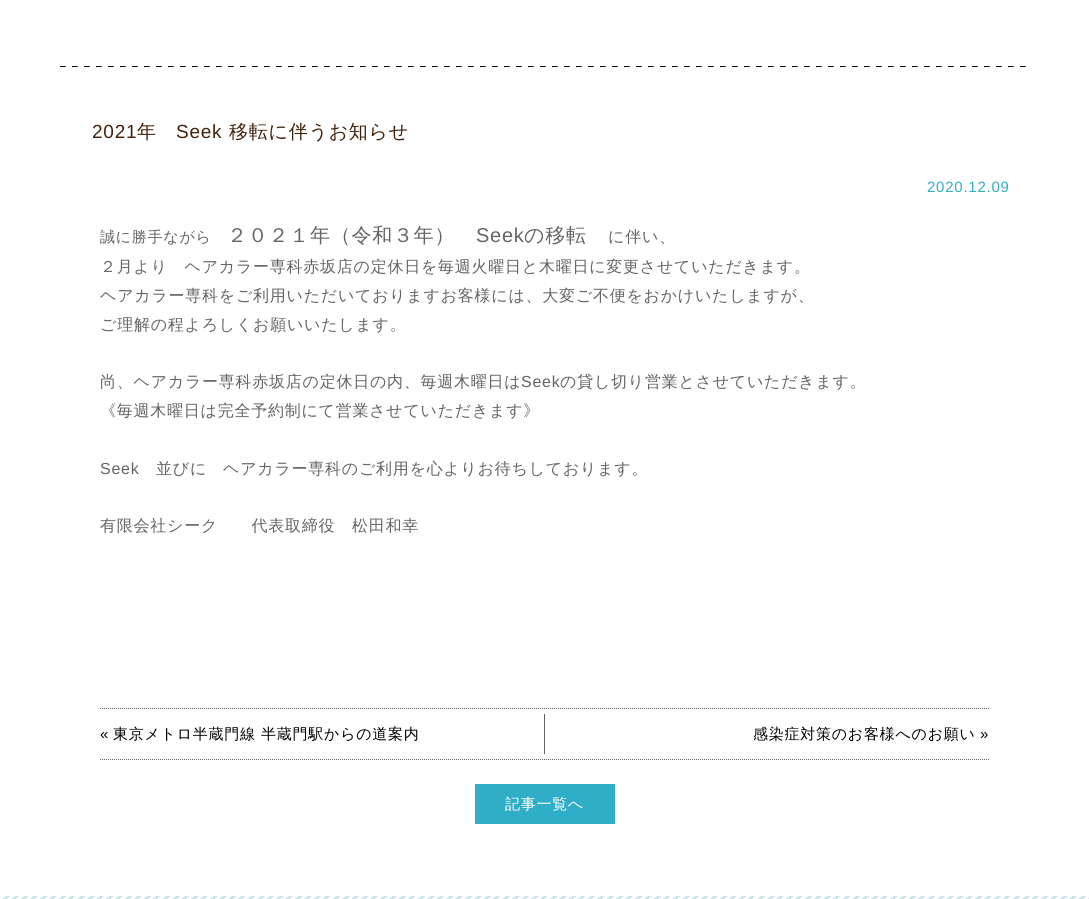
#include <cairo.h>
#include <math.h>
#include <stddef.h>

static cairo_t *ctx;

static void ink(unsigned color) {
    cairo_set_source_rgb(ctx, (color >> 16) / 255.0, (color >> 8 & 255) / 255.0, (color & 255) / 255.0);
}

static void write_spaced(double x, double y, const char *s, double letter, double word) {
    cairo_move_to(ctx, x, y);
    while (*s) {
        char ch[5] = {0};
        int n = 0;
        do ch[n++] = *s++; while ((*s & 0xC0) == 0x80);
        cairo_show_text(ctx, ch);
        cairo_rel_move_to(ctx, letter + word * (*ch == ' '), 0);
    }
}

static void block(double x, double y, double w, double h, unsigned color) {
    ink(color);
    cairo_rectangle(ctx, x, y, w, h);
    cairo_fill(ctx);
}

static void paste(const char *path, double x, double y, double w, double h) {
    cairo_surface_t *image = cairo_image_surface_create_from_png(path);
    cairo_save(ctx);
    cairo_set_source_surface(ctx, image, x, y);
    cairo_rectangle(ctx, x, y, w, h);
    cairo_fill(ctx);
    cairo_restore(ctx);
    cairo_surface_destroy(image);
}

int main(void) {
    cairo_surface_t *surface = cairo_image_surface_create(CAIRO_FORMAT_RGB24, 1089, 899);
    ctx = cairo_create(surface);
    cairo_font_options_t *options = cairo_font_options_create();
    cairo_font_options_set_hint_metrics(options, CAIRO_HINT_METRICS_OFF);
    cairo_font_options_set_hint_style(options, CAIRO_HINT_STYLE_NONE);
    cairo_set_font_options(ctx, options);
    cairo_set_miter_limit(ctx, 4);
    ink(0xffffff);
    cairo_paint(ctx);
    paste("pic1.png", 60, 66, 966, 1);
    cairo_select_font_face(ctx, "Liberation Sans", CAIRO_FONT_SLANT_NORMAL, CAIRO_FONT_WEIGHT_NORMAL);
    cairo_set_font_size(ctx, 19);
    ink(0x42210b);
    write_spaced(92, 138, "2021", 0.75, 0);
    cairo_select_font_face(ctx, "WenQuanYi Zen Hei Medium", CAIRO_FONT_SLANT_NORMAL, CAIRO_FONT_WEIGHT_NORMAL);
    write_spaced(137, 138, "年", 0.75, 0);
    cairo_select_font_face(ctx, "Liberation Sans", CAIRO_FONT_SLANT_NORMAL, CAIRO_FONT_WEIGHT_NORMAL);
    write_spaced(176, 138, "Seek", 0.75, 0);
    cairo_select_font_face(ctx, "WenQuanYi Zen Hei Medium", CAIRO_FONT_SLANT_NORMAL, CAIRO_FONT_WEIGHT_NORMAL);
    write_spaced(229, 138, "移転に伴うお知らせ", 0.75, 0);
    cairo_select_font_face(ctx, "Liberation Sans", CAIRO_FONT_SLANT_NORMAL, CAIRO_FONT_WEIGHT_NORMAL);
    cairo_set_font_size(ctx, 15);
    ink(0x30aec7);
    write_spaced(927, 192, "2020.12.09", 0.75, 0);
    cairo_select_font_face(ctx, "WenQuanYi Zen Hei Medium", CAIRO_FONT_SLANT_NORMAL, CAIRO_FONT_WEIGHT_NORMAL);
    ink(0x646464);
    write_spaced(100, 242, "誠に勝手ながら", 0.75, 0);
    cairo_set_font_size(ctx, 20);
    write_spaced(227, 242, "２０２１年（令和３年）", 0.75, 0);
    cairo_select_font_face(ctx, "Liberation Sans", CAIRO_FONT_SLANT_NORMAL, CAIRO_FONT_WEIGHT_NORMAL);
    write_spaced(476, 242, "Seek", 0.75, 0);
    cairo_select_font_face(ctx, "WenQuanYi Zen Hei Medium", CAIRO_FONT_SLANT_NORMAL, CAIRO_FONT_WEIGHT_NORMAL);
    write_spaced(524, 242, "の移転", 0.75, 0);
    cairo_set_font_size(ctx, 16);
    write_spaced(608, 242, "に伴い、", 0.75, 0);
    write_spaced(100, 272, "２月より　ヘアカラー専科赤坂店の定休日を毎週火曜日と木曜日に変更させていただきます。", 0.75, 0);
    write_spaced(100, 301, "ヘアカラー専科をご利用いただいておりますお客様には、大変ご不便をおかけいたしますが、", 0.75, 0);
    write_spaced(100, 330, "ご理解の程よろしくお願いいたします。", 0.75, 0);
    write_spaced(100, 387, "尚、ヘアカラー専科赤坂店の定休日の内、毎週木曜日は", 0.75, 0);
    cairo_select_font_face(ctx, "Liberation Sans", CAIRO_FONT_SLANT_NORMAL, CAIRO_FONT_WEIGHT_NORMAL);
    write_spaced(521, 387, "Seek", 0.75, 0);
    cairo_select_font_face(ctx, "WenQuanYi Zen Hei Medium", CAIRO_FONT_SLANT_NORMAL, CAIRO_FONT_WEIGHT_NORMAL);
    write_spaced(560, 387, "の貸し切り営業とさせていただきます。", 0.75, 0);
    write_spaced(100, 416, "《毎週木曜日は完全予約制にて営業させていただきます》", 0.75, 0);
    cairo_select_font_face(ctx, "Liberation Sans", CAIRO_FONT_SLANT_NORMAL, CAIRO_FONT_WEIGHT_NORMAL);
    write_spaced(100, 474, "Seek", 0.75, 0);
    cairo_select_font_face(ctx, "WenQuanYi Zen Hei Medium", CAIRO_FONT_SLANT_NORMAL, CAIRO_FONT_WEIGHT_NORMAL);
    write_spaced(156, 474, "並びに", 0.75, 0);
    write_spaced(223, 474, "ヘアカラー専科のご利用を心よりお待ちしております。", 0.75, 0);
    write_spaced(100, 531, "有限会社シーク　　代表取締役　松田和幸", 0.75, 0);
    cairo_new_path(ctx);
    cairo_move_to(ctx, 100, 708.5);
    cairo_line_to(ctx, 990, 708.5);
    cairo_set_line_width(ctx, 1);
    cairo_set_dash(ctx, (double[]){1, 1}, 2, 0);
    cairo_stroke(ctx);
    cairo_new_path(ctx);
    cairo_move_to(ctx, 100, 759.5);
    cairo_line_to(ctx, 990, 759.5);
    cairo_stroke(ctx);
    block(544, 714, 1, 40, 0x646464);
    cairo_select_font_face(ctx, "Liberation Sans", CAIRO_FONT_SLANT_NORMAL, CAIRO_FONT_WEIGHT_NORMAL);
    cairo_set_font_size(ctx, 15);
    ink(0x000000);
    write_spaced(100, 739, "«", 0.75, 0);
    cairo_select_font_face(ctx, "WenQuanYi Zen Hei Medium", CAIRO_FONT_SLANT_NORMAL, CAIRO_FONT_WEIGHT_NORMAL);
    write_spaced(113, 739, "東京メトロ半蔵門線 半蔵門駅からの道案内", 0.75, 0);
    write_spaced(753, 739, "感染症対策のお客様へのお願い", 0.75, 0);
    cairo_select_font_face(ctx, "Liberation Sans", CAIRO_FONT_SLANT_NORMAL, CAIRO_FONT_WEIGHT_NORMAL);
    write_spaced(980, 739, "»", 0.75, 0);
    block(475, 784, 140, 40, 0x30aec7);
    cairo_select_font_face(ctx, "WenQuanYi Zen Hei Medium", CAIRO_FONT_SLANT_NORMAL, CAIRO_FONT_WEIGHT_NORMAL);
    ink(0xffffff);
    write_spaced(505, 809, "記事一覧へ", 0.75, 0);
    paste("pic2.png", 2, 896, 1087, 3);
    cairo_surface_write_to_png(surface, "screenshot.png");
    cairo_font_options_destroy(options);
    cairo_destroy(ctx);
    cairo_surface_destroy(surface);
    return 0;
}
